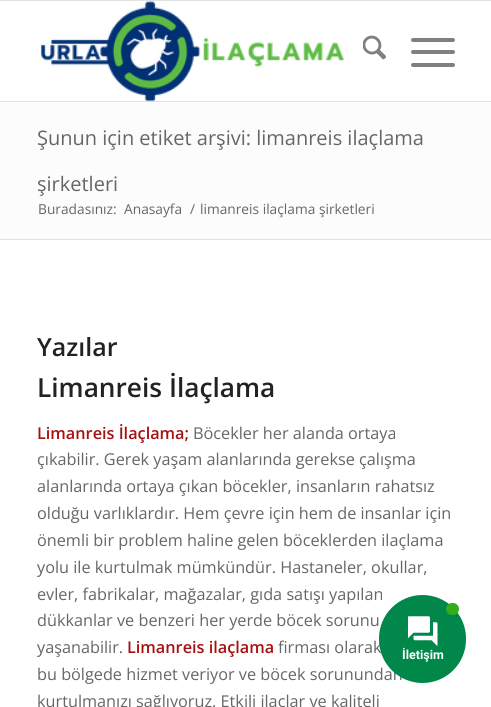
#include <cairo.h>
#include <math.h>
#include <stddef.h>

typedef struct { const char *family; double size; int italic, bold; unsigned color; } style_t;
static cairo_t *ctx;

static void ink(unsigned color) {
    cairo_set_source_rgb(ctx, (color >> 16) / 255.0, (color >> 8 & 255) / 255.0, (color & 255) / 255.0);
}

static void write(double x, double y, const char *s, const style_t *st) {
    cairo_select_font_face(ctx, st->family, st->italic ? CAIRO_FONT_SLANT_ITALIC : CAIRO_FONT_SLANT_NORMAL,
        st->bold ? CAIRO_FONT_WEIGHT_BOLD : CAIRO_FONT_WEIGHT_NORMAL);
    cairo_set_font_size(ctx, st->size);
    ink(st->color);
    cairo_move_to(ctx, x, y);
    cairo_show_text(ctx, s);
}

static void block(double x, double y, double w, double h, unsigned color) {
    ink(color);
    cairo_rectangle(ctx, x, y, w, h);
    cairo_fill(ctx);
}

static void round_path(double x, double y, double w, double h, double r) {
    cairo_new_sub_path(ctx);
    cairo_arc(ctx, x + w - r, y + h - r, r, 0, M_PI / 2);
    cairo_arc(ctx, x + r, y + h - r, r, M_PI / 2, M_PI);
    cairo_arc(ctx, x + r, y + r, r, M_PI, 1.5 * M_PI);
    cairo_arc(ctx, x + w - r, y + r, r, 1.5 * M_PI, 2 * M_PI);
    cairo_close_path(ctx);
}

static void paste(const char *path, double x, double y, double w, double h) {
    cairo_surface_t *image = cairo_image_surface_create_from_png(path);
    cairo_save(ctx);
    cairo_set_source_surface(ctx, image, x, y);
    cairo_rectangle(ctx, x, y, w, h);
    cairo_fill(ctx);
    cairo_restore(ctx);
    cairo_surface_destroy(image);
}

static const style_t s1 = {"Open Sans", 20, 0, 0, 0x666666};
static const style_t s2 = {"Open Sans", 13.75, 0, 0, 0x666666};
static const style_t s3 = {"Open Sans SemiBold", 25, 0, 0, 0x222222};
static const style_t s4 = {"Open Sans SemiBold", 26.25, 0, 0, 0x222222};
static const style_t s5 = {"Open Sans SemiBold", 16.25, 0, 0, 0xa81010};
static const style_t s6 = {"Open Sans", 16.25, 0, 0, 0x666666};
static const style_t s7 = {"Roboto", 12.5, 0, 1, 0xffffff};

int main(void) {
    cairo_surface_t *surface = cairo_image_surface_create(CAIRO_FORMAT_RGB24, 491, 707);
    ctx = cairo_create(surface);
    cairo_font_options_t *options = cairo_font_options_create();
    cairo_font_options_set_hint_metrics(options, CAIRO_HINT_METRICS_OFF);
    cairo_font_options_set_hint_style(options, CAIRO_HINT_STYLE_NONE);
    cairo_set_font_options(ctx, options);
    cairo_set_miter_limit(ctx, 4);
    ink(0xffffff);
    cairo_paint(ctx);
    block(0, 0, 491, 1, 0xe1e1e1);
    block(0, 101, 491, 1, 0xe1e1e1);
    paste("pic1.png", 40, 1, 304, 101);
    paste("pic2.png", 363, 35, 23, 25);
    ink(0x808080);
    round_path(411, 50, 44, 4, 2);
    cairo_fill(ctx);
    round_path(411, 38, 44, 4, 2);
    cairo_fill(ctx);
    round_path(411, 63, 44, 4, 2);
    cairo_fill(ctx);
    block(0, 103, 491, 136, 0xfcfcfc);
    write(37, 145, "Şunun için etiket arşivi: limanreis ilaçlama", &s1);
    write(37, 191, "şirketleri", &s1);
    write(38, 214, "Buradasınız:", &s2);
    write(124, 214, "Anasayfa", &s2);
    write(190, 214, "/", &s2);
    write(200, 214, "limanreis ilaçlama şirketleri", &s2);
    block(0, 239, 491, 1, 0xe1e1e1);
    write(37, 356, "Yazılar", &s3);
    write(37, 397, "Limanreis İlaçlama", &s4);
    write(37, 439, "Limanreis İlaçlama;", &s5);
    write(193, 439, "Böcekler her alanda ortaya", &s6);
    write(37, 465, "çıkabilir. Gerek yaşam alanlarında gerekse çalışma", &s6);
    write(37, 492, "alanlarında ortaya çıkan böcekler, insanların rahatsız", &s6);
    write(37, 519, "olduğu varlıklardır. Hem çevre için hem de insanlar için", &s6);
    write(37, 546, "önemli bir problem haline gelen böceklerden ilaçlama", &s6);
    write(37, 573, "yolu ile kurtulmak mümkündür. Hastaneler, okullar,", &s6);
    write(37, 600, "evler, fabrikalar, mağazalar, gıda satışı yapılan", &s6);
    write(37, 626, "dükkanlar ve benzeri her yerde böcek sorunu", &s6);
    write(37, 653, "yaşanabilir.", &s6);
    write(127, 653, "Limanreis ilaçlama", &s5);
    write(278, 653, "firması olarak", &s6);
    write(37, 680, "bu bölgede hizmet veriyor ve böcek sorunundan", &s6);
    write(37, 707, "kurtulmanızı sağlıyoruz. Etkili ilaçlar ve kaliteli", &s6);
    ink(0x008749);
    round_path(379, 595, 87, 88, 43.5);
    cairo_fill(ctx);
    ink(0x35ac19);
    round_path(446, 603, 13, 12, 6);
    cairo_fill(ctx);
    paste("pic3.png", 408, 616, 30, 30);
    write(402, 659, "İletişim", &s7);
    cairo_surface_write_to_png(surface, "screenshot.png");
    cairo_font_options_destroy(options);
    cairo_destroy(ctx);
    cairo_surface_destroy(surface);
    return 0;
}
